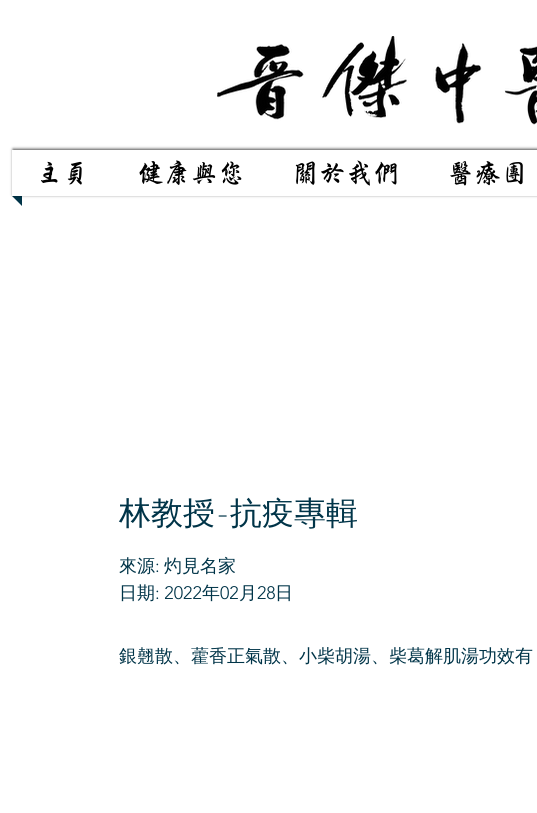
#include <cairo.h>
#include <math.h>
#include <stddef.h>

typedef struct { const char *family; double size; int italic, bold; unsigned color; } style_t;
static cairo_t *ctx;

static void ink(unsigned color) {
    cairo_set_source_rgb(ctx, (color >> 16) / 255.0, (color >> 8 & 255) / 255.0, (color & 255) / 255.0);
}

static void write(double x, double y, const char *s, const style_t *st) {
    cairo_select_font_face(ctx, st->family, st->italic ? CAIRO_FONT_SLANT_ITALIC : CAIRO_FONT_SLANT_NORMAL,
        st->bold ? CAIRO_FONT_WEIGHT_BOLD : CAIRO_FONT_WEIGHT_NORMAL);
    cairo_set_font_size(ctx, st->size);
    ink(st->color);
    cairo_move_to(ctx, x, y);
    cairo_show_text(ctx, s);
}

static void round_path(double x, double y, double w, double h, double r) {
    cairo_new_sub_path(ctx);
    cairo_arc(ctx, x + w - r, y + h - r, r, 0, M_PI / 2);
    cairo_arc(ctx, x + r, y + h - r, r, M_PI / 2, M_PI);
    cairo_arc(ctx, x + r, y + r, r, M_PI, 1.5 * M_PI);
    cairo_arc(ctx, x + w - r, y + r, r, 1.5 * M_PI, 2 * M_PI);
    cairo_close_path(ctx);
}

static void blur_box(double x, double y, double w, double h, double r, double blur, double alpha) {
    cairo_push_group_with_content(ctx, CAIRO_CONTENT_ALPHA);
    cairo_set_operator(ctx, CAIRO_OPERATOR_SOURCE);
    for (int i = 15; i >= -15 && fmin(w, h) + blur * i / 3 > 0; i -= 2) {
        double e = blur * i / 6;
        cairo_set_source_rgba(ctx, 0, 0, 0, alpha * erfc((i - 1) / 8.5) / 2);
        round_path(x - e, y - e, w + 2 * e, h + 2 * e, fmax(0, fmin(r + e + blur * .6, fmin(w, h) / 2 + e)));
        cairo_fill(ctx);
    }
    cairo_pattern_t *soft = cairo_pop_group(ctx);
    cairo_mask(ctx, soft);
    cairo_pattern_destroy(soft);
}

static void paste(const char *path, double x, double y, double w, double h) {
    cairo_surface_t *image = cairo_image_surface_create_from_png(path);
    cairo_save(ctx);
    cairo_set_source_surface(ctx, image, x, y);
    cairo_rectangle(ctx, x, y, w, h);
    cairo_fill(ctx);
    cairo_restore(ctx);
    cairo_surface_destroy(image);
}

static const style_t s1 = {"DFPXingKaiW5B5", 27, 0, 0, 0x000000};
static const style_t s2 = {"WenQuanYi Zen Hei Medium", 32, 0, 0, 0x003448};
static const style_t s3 = {"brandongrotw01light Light", 32, 0, 0, 0x003448};
static const style_t s4 = {"WenQuanYi Zen Hei Medium", 18, 0, 0, 0x003448};
static const style_t s5 = {"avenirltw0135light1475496 Light", 18, 0, 0, 0x003448};

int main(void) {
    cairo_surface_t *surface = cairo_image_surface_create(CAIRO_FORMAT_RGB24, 537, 813);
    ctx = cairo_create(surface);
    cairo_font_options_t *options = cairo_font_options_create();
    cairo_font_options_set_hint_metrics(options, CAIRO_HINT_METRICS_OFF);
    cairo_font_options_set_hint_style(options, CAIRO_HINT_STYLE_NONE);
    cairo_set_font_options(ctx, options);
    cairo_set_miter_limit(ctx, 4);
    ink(0xffffff);
    cairo_paint(ctx);
    paste("pic1.png", 217, 36, 320, 89);
    ink(0x003448);
    cairo_new_path(ctx);
    cairo_move_to(ctx, 12, 196);
    cairo_line_to(ctx, 22, 196);
    cairo_line_to(ctx, 22, 206);
    cairo_close_path(ctx);
    cairo_fill(ctx);
    cairo_save(ctx);
    cairo_set_fill_rule(ctx, CAIRO_FILL_RULE_EVEN_ODD);
    cairo_new_path(ctx);
    cairo_move_to(ctx, 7, 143);
    cairo_line_to(ctx, 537, 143);
    cairo_line_to(ctx, 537, 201);
    cairo_line_to(ctx, 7, 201);
    cairo_close_path(ctx);
    cairo_move_to(ctx, 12, 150);
    cairo_line_to(ctx, 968, 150);
    cairo_line_to(ctx, 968, 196);
    cairo_line_to(ctx, 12, 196);
    cairo_close_path(ctx);
    cairo_clip(ctx);
    ink(0x000000);
    blur_box(13, 149, 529, 46, 0, 1.5, 0.7);
    cairo_restore(ctx);
    write(36, 181, "主頁", &s1);
    write(137, 181, "健康與您", &s1);
    write(292, 181, "關於我們", &s1);
    write(447, 181, "醫療團", &s1);
    write(119, 524, "林教授", &s2);
    write(215, 524, "-", &s3);
    write(230, 524, "抗疫專輯", &s2);
    write(119, 572, "來源", &s4);
    write(155, 572, ":", &s5);
    write(164, 572, "灼見名家", &s4);
    write(119, 599, "日期", &s4);
    write(155, 599, ": 2022", &s5);
    write(202, 599, "年", &s4);
    write(220, 599, "02", &s5);
    write(239, 599, "月", &s4);
    write(257, 599, "28", &s5);
    write(275, 599, "日", &s4);
    write(119, 662, "銀翹散、藿香正氣散、小柴胡湯、柴葛解肌湯功效有", &s4);
    cairo_surface_write_to_png(surface, "screenshot.png");
    cairo_font_options_destroy(options);
    cairo_destroy(ctx);
    cairo_surface_destroy(surface);
    return 0;
}
